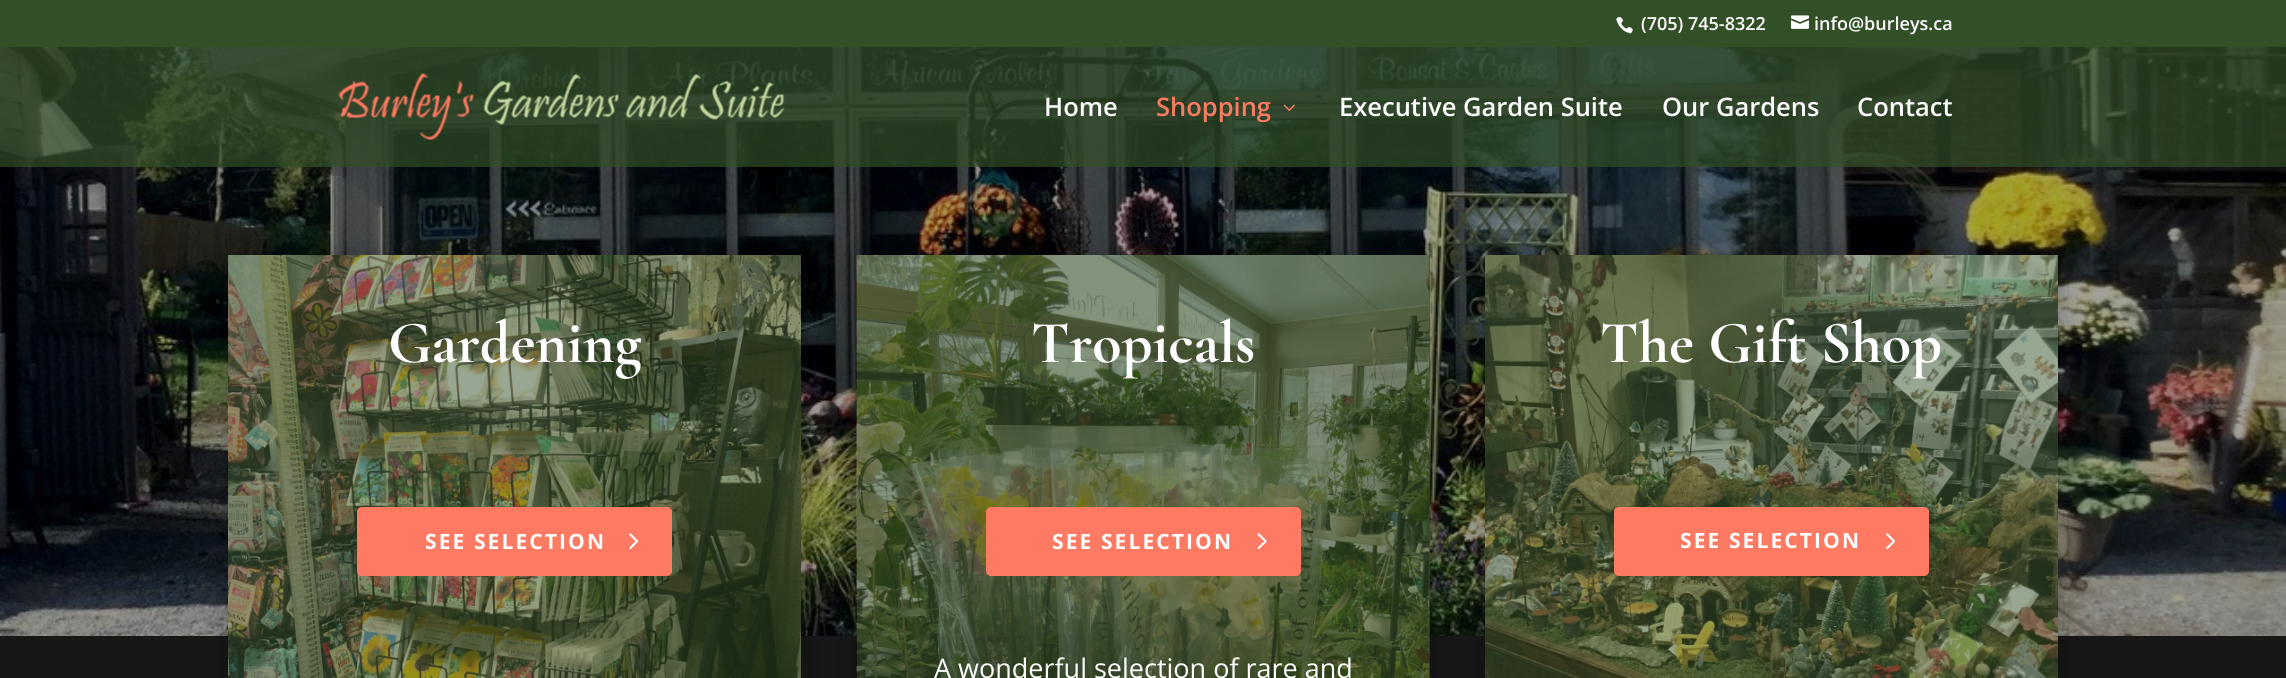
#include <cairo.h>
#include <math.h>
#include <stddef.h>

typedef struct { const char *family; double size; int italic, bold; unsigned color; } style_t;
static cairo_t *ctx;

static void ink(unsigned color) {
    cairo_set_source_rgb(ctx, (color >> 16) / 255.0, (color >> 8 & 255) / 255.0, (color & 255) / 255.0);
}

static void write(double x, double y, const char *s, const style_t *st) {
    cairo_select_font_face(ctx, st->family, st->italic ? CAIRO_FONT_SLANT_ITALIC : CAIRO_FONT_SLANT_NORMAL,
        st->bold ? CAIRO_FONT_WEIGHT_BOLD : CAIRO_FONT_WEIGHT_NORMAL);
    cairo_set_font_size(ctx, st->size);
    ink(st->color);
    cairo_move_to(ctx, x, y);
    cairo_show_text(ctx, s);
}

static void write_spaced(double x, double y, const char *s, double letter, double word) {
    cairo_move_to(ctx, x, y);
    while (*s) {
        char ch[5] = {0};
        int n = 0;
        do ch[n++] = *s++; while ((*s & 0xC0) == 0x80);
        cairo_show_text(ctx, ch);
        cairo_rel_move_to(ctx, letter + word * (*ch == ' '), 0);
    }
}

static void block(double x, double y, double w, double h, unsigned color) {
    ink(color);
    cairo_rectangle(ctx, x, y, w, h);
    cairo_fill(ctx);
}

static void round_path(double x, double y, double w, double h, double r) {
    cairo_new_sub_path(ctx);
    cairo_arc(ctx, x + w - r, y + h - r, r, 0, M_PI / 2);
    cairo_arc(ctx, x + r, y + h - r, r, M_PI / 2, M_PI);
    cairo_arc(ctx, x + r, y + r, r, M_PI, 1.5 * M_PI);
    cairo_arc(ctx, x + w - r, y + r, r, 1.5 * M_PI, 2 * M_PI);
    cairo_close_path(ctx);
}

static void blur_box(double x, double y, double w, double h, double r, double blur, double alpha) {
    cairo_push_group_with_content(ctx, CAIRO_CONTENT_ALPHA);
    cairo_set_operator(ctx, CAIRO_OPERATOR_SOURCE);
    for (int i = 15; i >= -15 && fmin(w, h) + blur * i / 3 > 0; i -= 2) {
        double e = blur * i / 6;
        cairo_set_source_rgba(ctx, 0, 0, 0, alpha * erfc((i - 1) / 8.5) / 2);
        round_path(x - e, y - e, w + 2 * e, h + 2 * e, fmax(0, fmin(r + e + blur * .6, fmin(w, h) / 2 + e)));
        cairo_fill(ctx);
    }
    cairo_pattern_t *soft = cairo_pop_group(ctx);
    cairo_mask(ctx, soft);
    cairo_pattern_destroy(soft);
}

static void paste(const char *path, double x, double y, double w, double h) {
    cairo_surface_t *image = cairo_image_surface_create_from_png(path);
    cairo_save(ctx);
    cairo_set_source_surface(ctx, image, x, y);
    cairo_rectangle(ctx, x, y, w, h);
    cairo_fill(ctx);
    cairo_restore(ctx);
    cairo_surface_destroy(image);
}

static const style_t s1 = {"Open Sans SemiBold", 18, 0, 0, 0xffffff};
static const style_t s2 = {"Open Sans SemiBold", 25.5, 0, 0, 0xffffff};
static const style_t s3 = {"Open Sans SemiBold", 25.5, 0, 0, 0xff7a62};
static const style_t s4 = {"Cormorant Garamond", 60, 0, 1, 0xffffff};
static const style_t s5 = {"Open Sans", 27, 0, 0, 0xffffff};

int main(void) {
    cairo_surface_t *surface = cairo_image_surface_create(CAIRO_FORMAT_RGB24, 2286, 678);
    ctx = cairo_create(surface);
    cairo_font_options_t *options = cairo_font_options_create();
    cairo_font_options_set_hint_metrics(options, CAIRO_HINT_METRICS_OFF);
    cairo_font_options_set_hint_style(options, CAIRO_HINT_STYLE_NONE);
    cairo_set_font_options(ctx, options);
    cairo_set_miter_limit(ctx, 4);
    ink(0x171717);
    cairo_paint(ctx);
    block(0, 0, 2286, 47, 0x324f27);
    paste("pic1.png", 1616, 16, 17, 18);
    write(1641, 30, "(705) 745-8322", &s1);
    paste("pic2.png", 1791, 15, 18, 14);
    write(1814, 30, "info@burleys.ca", &s1);
    paste("pic5.png", 0, 47, 2286, 589);
    cairo_set_source_rgba(ctx, 0.196, 0.31, 0.153, 0.69);
    cairo_rectangle(ctx, 0, 47, 2286, 120);
    cairo_fill(ctx);
    paste("pic3.png", 338, 73, 447, 67);
    write(1044, 116, "Home", &s2);
    write(1156, 116, "Shopping", &s3);
    paste("pic4.png", 1283, 104, 12, 7);
    write(1339, 116, "Executive Garden Suite", &s2);
    write(1662, 116, "Our Gardens", &s2);
    write(1857, 116, "Contact", &s2);
    ink(0x000000);
    blur_box(228, 258, 573, 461, 0, 13.5, 0.3);
    paste("pic6.png", 228, 255, 573, 423);
    write(388, 362, "Gardening", &s4);
    ink(0xff7a62);
    round_path(357, 507, 315, 69, 5);
    cairo_fill(ctx);
    cairo_select_font_face(ctx, "Open Sans", CAIRO_FONT_SLANT_NORMAL, CAIRO_FONT_WEIGHT_BOLD);
    cairo_set_font_size(ctx, 21);
    ink(0xffffff);
    write_spaced(425, 549, "SEE SELECTION", 2.1, 0);
    paste("pic7.png", 629, 533, 10, 17);
    ink(0x000000);
    blur_box(857, 258, 573, 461, 0, 13.5, 0.3);
    paste("pic8.png", 856, 255, 574, 423);
    cairo_set_source_rgba(ctx, 0.196, 0.31, 0.153, 0.5);
    cairo_rectangle(ctx, 857, 255, 573, 423);
    cairo_fill(ctx);
    cairo_set_source_rgba(ctx, 0.196, 0.31, 0.153, 0.2);
    cairo_rectangle(ctx, 857, 255, 573, 423);
    cairo_fill(ctx);
    write(1031, 362, "Tropicals", &s4);
    ink(0xff7a62);
    round_path(986, 507, 315, 69, 5);
    cairo_fill(ctx);
    cairo_select_font_face(ctx, "Open Sans", CAIRO_FONT_SLANT_NORMAL, CAIRO_FONT_WEIGHT_BOLD);
    cairo_set_font_size(ctx, 21);
    ink(0xffffff);
    write_spaced(1052, 549, "SEE SELECTION", 2.1, 0);
    paste("pic9.png", 1257, 533, 10, 17);
    write(934, 678, "A wonderful selection of rare and", &s5);
    ink(0x000000);
    blur_box(1485, 258, 573, 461, 0, 13.5, 0.3);
    paste("pic10.png", 1485, 255, 573, 423);
    write(1600, 362, "The Gift Shop", &s4);
    ink(0xff7a62);
    round_path(1614, 507, 315, 69, 5);
    cairo_fill(ctx);
    cairo_select_font_face(ctx, "Open Sans", CAIRO_FONT_SLANT_NORMAL, CAIRO_FONT_WEIGHT_BOLD);
    cairo_set_font_size(ctx, 21);
    ink(0xffffff);
    write_spaced(1680, 548, "SEE SELECTION", 2.1, 0);
    paste("pic7.png", 1886, 533, 10, 17);
    cairo_surface_write_to_png(surface, "screenshot.png");
    cairo_font_options_destroy(options);
    cairo_destroy(ctx);
    cairo_surface_destroy(surface);
    return 0;
}
